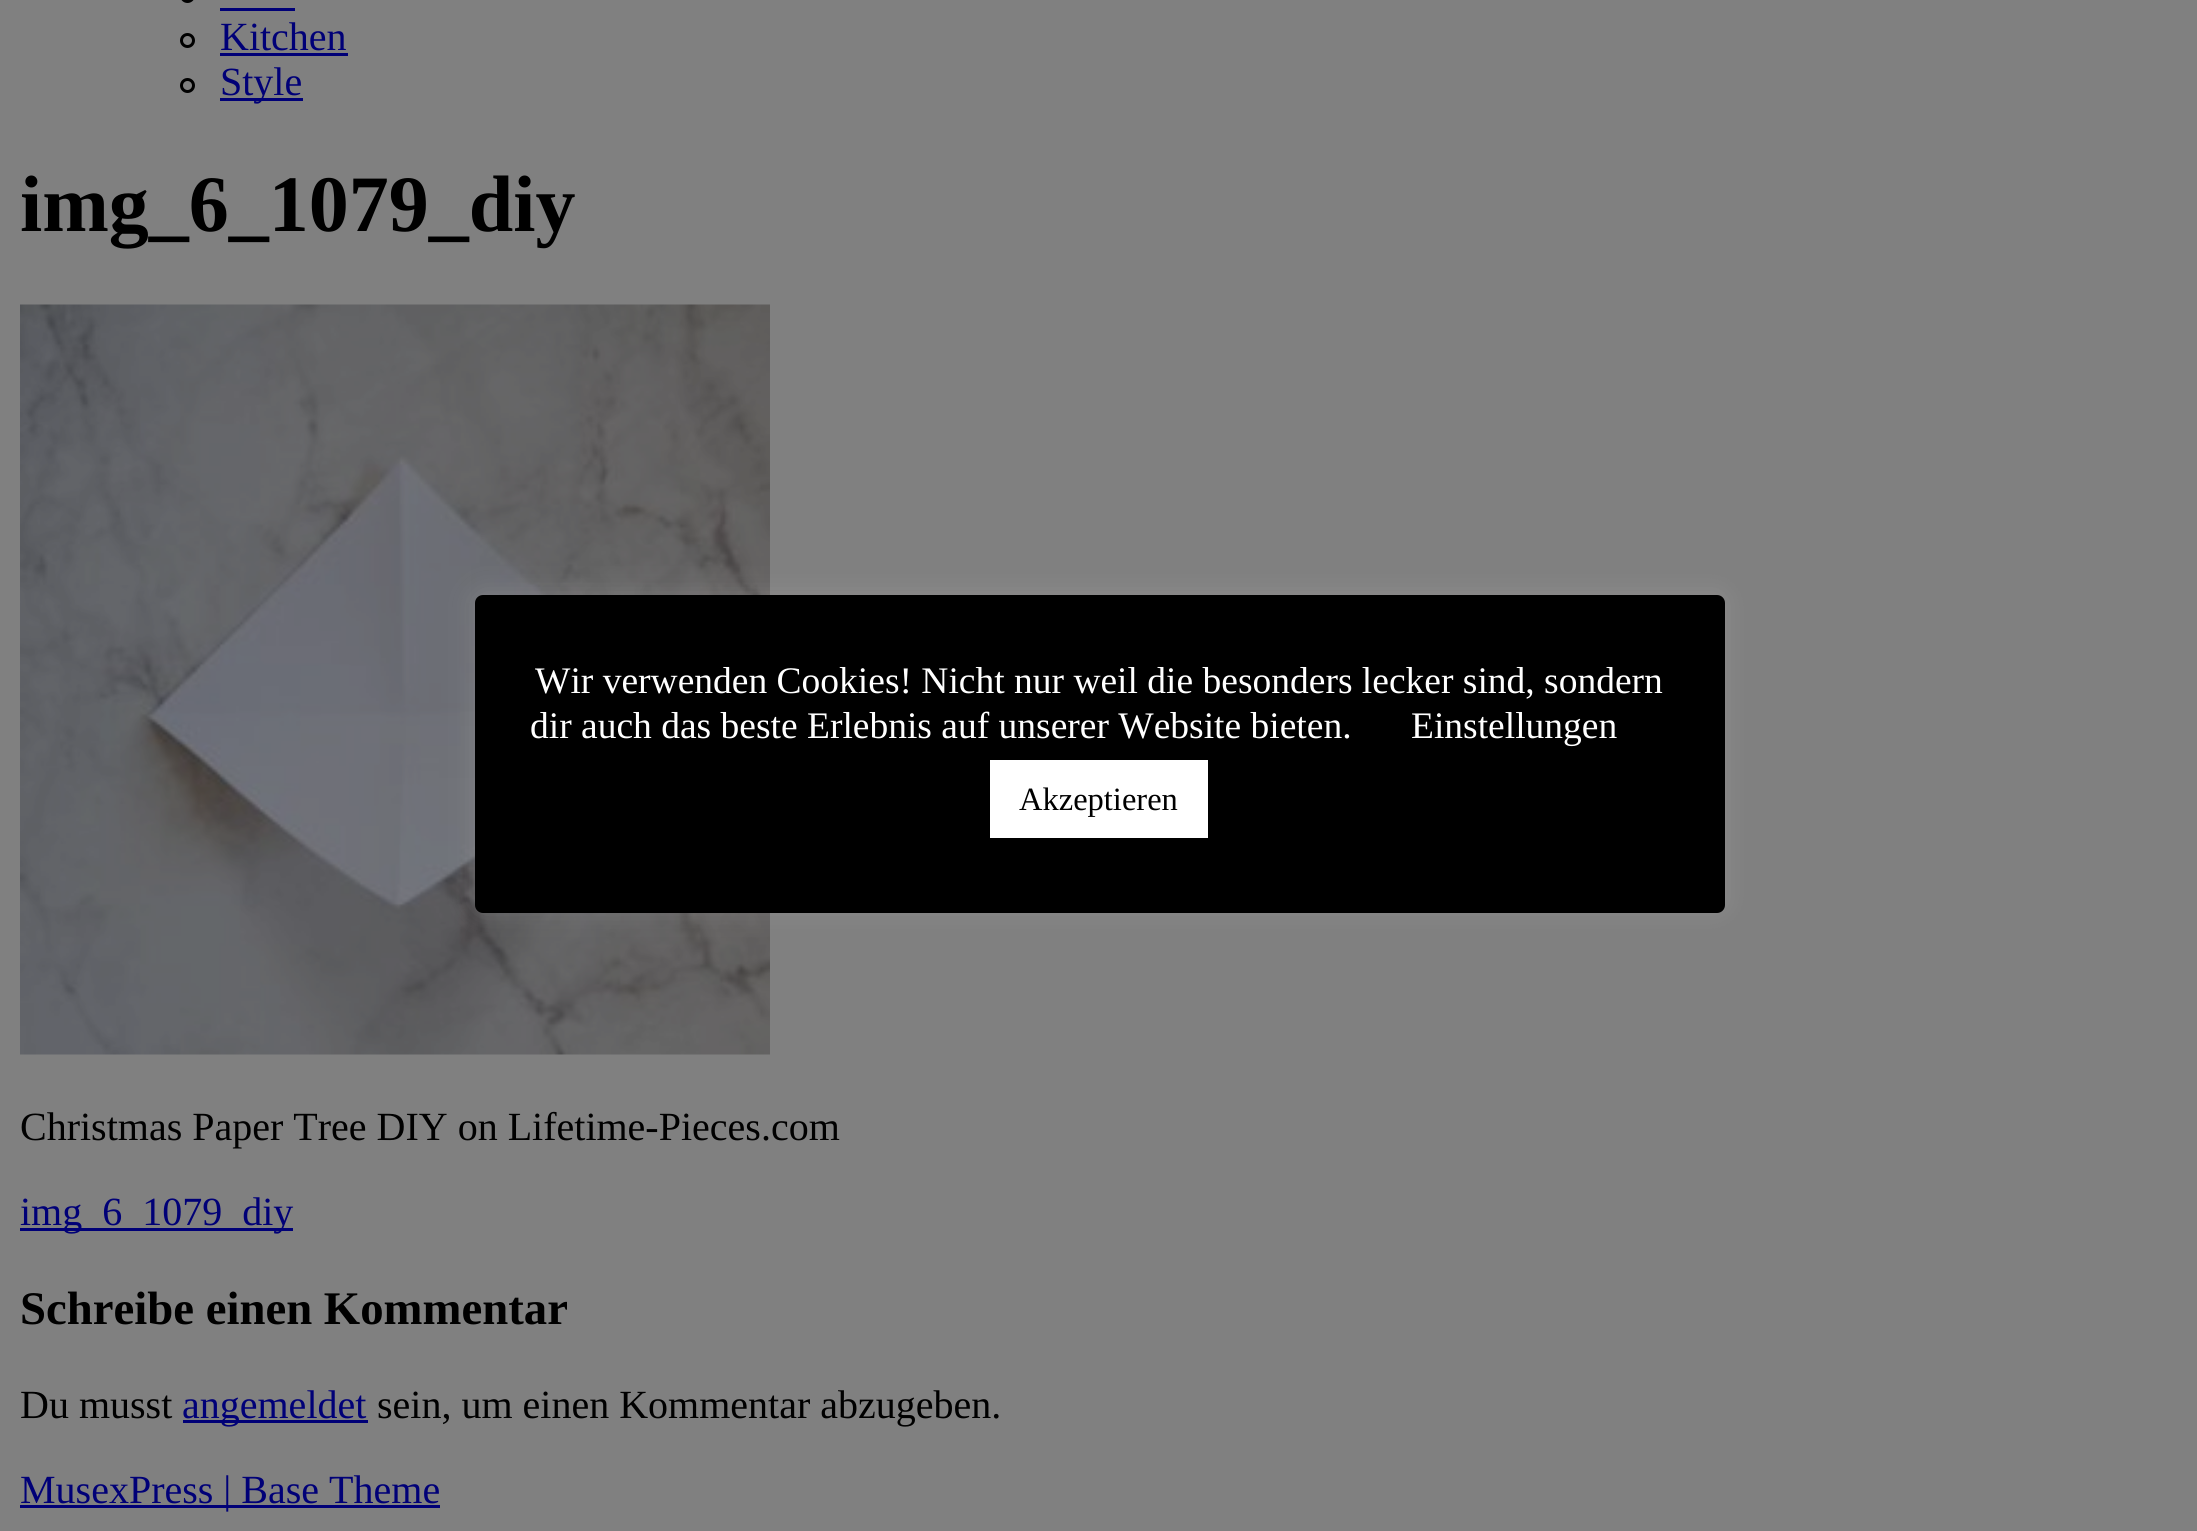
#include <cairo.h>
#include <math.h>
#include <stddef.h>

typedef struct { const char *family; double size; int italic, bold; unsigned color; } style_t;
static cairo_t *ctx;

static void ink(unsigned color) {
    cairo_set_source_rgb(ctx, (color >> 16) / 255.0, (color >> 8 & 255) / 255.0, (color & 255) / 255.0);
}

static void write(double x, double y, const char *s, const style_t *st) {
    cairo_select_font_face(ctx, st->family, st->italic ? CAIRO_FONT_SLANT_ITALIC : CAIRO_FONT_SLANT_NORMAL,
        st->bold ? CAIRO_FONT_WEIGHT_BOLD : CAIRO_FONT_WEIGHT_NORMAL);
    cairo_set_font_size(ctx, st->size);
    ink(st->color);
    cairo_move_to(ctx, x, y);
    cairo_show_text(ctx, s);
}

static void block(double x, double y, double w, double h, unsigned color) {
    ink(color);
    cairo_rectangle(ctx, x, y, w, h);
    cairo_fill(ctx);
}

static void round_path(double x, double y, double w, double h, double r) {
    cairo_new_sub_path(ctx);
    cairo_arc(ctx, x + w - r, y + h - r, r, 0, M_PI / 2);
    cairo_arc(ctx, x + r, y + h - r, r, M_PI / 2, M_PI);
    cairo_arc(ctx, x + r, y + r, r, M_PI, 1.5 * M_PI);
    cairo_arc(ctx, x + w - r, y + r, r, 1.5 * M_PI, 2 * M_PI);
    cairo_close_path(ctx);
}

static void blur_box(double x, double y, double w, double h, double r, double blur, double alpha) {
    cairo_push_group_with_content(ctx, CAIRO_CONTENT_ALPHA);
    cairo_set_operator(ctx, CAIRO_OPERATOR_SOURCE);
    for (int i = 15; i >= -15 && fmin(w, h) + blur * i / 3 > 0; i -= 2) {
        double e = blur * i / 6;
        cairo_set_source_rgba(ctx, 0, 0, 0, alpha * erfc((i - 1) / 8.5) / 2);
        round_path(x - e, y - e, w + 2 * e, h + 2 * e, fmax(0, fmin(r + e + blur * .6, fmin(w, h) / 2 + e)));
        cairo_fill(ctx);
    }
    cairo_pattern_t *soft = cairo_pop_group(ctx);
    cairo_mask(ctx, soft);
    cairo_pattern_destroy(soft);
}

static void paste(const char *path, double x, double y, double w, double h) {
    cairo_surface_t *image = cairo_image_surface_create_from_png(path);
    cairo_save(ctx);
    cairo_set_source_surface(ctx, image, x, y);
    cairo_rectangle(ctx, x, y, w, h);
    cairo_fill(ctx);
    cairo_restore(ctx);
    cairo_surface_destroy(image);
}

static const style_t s1 = {"Liberation Serif", 40, 0, 0, 0x000077};
static const style_t s2 = {"Liberation Serif", 80, 0, 1, 0x000000};
static const style_t s3 = {"Liberation Serif", 40, 0, 0, 0x000000};
static const style_t s4 = {"Liberation Serif", 46.75, 0, 1, 0x000000};
static const style_t s5 = {"Liberation Serif", 37.5, 0, 0, 0xffffff};
static const style_t s6 = {"Liberation Serif", 32.5, 0, 0, 0x000000};

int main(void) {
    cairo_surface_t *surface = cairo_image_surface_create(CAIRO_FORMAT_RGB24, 2197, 1531);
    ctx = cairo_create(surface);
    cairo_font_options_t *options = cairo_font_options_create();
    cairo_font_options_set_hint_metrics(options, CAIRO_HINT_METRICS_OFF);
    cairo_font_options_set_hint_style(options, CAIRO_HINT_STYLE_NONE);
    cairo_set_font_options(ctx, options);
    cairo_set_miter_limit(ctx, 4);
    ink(0x808080);
    cairo_paint(ctx);
    round_path(181.5, -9.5, 12, 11, 6);
    ink(0x000000);
    cairo_set_line_width(ctx, 3);
    cairo_stroke(ctx);
    block(220, 8, 75, 3, 0x000077);
    cairo_arc(ctx, 187.5, 40.5, 6, 0, 2 * M_PI);
    ink(0x000000);
    cairo_stroke(ctx);
    write(220, 50, "Kitchen", &s1);
    block(220, 53, 128, 3, 0x000077);
    cairo_new_path(ctx);
    cairo_arc(ctx, 187.5, 85.5, 6, 0, 2 * M_PI);
    ink(0x000000);
    cairo_stroke(ctx);
    block(220, 98, 83, 3, 0x000077);
    write(220, 95, "Style", &s1);
    write(20, 231, "img_6_1079_diy", &s2);
    paste("pic1.png", 20, 304, 750, 751);
    write(20, 1140, "Christmas Paper Tree DIY on Lifetime-Pieces.com", &s3);
    block(20, 1228, 273, 3, 0x000077);
    write(20, 1225, "img_6_1079_diy", &s1);
    write(20, 1324, "Schreibe einen Kommentar", &s4);
    write(20, 1418, "Du musst", &s3);
    block(183, 1420, 185, 3, 0x000077);
    write(182, 1418, "angemeldet", &s1);
    write(377, 1418, "sein, um einen Kommentar abzugeben.", &s3);
    block(20, 1505, 420, 3, 0x000077);
    write(20, 1503, "MusexPress | Base Theme", &s1);
    ink(0xacabab);
    blur_box(475, 593, 1250, 317, 8, 12.5, 0.3);
    ink(0x000000);
    round_path(475, 595, 1250, 318, 8);
    cairo_fill(ctx);
    write(535, 693, "Wir verwenden Cookies! Nicht nur weil die besonders lecker sind, sondern", &s5);
    write(530, 738, "dir auch das beste Erlebnis auf unserer Website bieten.", &s5);
    write(1411, 738, "Einstellungen", &s5);
    block(990, 760, 218, 78, 0xffffff);
    write(1019, 810, "Akzeptieren", &s6);
    cairo_surface_write_to_png(surface, "screenshot.png");
    cairo_font_options_destroy(options);
    cairo_destroy(ctx);
    cairo_surface_destroy(surface);
    return 0;
}
